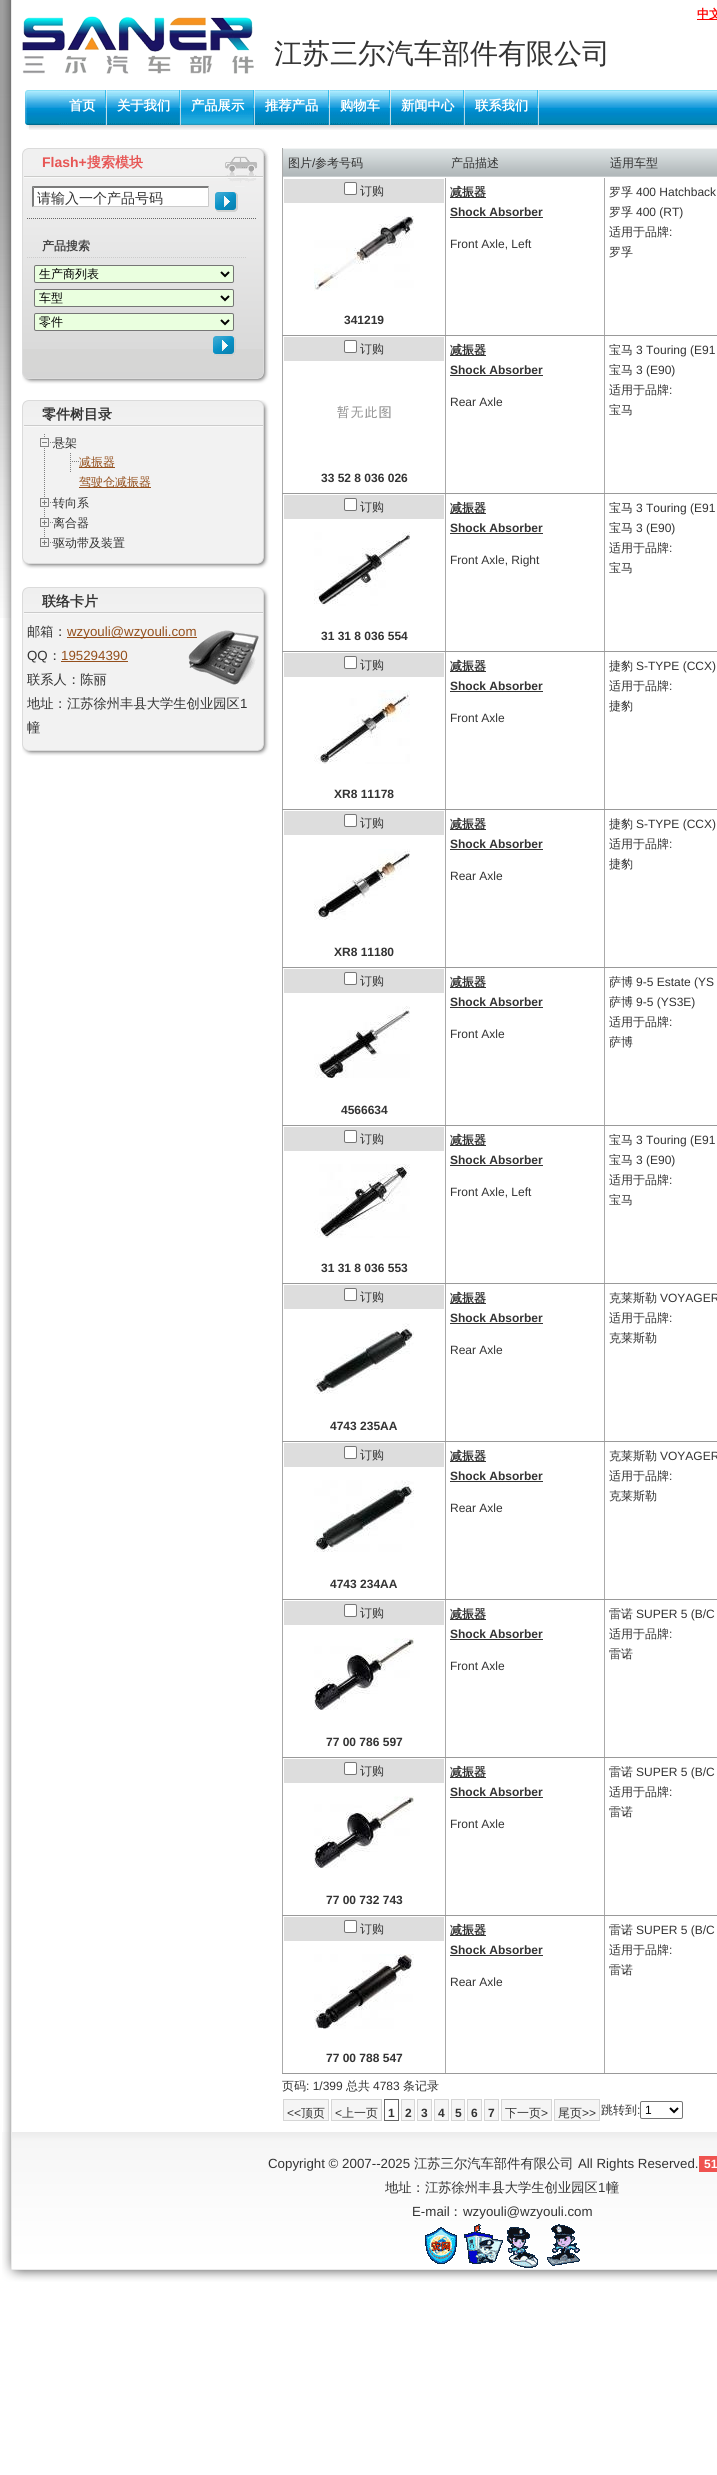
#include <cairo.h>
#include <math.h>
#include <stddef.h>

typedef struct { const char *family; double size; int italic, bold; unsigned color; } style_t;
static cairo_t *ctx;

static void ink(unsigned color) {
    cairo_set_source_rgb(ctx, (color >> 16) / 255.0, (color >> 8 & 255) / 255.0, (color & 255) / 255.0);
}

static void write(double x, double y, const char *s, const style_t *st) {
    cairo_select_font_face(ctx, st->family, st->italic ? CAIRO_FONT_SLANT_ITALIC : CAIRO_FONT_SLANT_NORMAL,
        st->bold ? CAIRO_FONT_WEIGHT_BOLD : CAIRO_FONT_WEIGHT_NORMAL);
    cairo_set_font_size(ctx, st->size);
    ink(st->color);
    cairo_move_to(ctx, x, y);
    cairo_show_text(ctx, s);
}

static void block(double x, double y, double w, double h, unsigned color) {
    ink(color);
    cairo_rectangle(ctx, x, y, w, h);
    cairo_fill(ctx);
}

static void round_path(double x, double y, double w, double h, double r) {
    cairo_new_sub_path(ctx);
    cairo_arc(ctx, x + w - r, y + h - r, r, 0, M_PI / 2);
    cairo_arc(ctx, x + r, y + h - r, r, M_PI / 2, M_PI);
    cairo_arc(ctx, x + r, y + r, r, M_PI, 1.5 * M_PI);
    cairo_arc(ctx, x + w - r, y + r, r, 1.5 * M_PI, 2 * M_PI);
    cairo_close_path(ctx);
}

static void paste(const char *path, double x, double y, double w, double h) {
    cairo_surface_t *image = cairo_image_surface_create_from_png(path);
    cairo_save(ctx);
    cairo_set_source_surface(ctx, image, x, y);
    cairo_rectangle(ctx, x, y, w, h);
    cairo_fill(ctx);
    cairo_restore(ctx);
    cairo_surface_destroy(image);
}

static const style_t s1 = {"WenQuanYi Zen Hei", 12, 0, 1, 0xff0000};
static const style_t s2 = {"WenQuanYi Zen Hei Medium", 28, 0, 0, 0x333333};
static const style_t s3 = {"WenQuanYi Zen Hei", 13.3, 0, 1, 0xffffff};
static const style_t s4 = {"Liberation Sans", 14, 0, 1, 0xe75655};
static const style_t s5 = {"WenQuanYi Zen Hei", 14, 0, 1, 0xe75655};
static const style_t s6 = {"WenQuanYi Zen Hei Medium", 14, 0, 0, 0x333333};
static const style_t s7 = {"WenQuanYi Zen Hei", 12, 0, 1, 0x444444};
static const style_t s8 = {"WenQuanYi Zen Hei Medium", 12, 0, 0, 0x000000};
static const style_t s9 = {"WenQuanYi Zen Hei", 14, 0, 1, 0x333333};
static const style_t s10 = {"WenQuanYi Zen Hei Medium", 12, 0, 0, 0x333333};
static const style_t s11 = {"WenQuanYi Zen Hei Medium", 12, 0, 0, 0x944f1c};
static const style_t s12 = {"WenQuanYi Zen Hei Medium", 13.3, 0, 0, 0x333333};
static const style_t s13 = {"Liberation Sans", 13.3, 0, 0, 0x944f1c};
static const style_t s14 = {"Liberation Sans", 13.3, 0, 0, 0x333333};
static const style_t s15 = {"Liberation Sans", 12, 0, 0, 0x333333};
static const style_t s16 = {"Liberation Sans", 12, 0, 1, 0x333333};
static const style_t s17 = {"WenQuanYi Zen Hei", 12, 0, 1, 0x333333};
static const style_t s18 = {"Liberation Sans", 12, 0, 0, 0x000000};
static const style_t s19 = {"Liberation Sans", 12, 0, 1, 0xffffff};

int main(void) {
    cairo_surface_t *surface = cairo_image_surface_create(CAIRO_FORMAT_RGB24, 717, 2475);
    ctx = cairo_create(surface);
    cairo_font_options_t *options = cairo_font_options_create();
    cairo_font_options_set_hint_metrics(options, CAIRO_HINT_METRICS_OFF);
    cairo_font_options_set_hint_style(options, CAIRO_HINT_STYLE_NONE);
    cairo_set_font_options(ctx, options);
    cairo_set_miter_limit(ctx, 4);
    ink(0xffffff);
    cairo_paint(ctx);
    paste("pic1.png", 0, 0, 11, 618);
    paste("pic2.png", 3, 0, 714, 2132);
    block(697, 19, 20, 1, 0xff0000);
    write(697, 18, "中文", &s1);
    paste("pic3.png", 22, 16, 232, 58);
    write(274, 63, "江苏三尔汽车部件有限公司", &s2);
    paste("pic4.png", 25, 90, 4, 39);
    paste("pic5.png", 29, 90, 688, 40);
    paste("pic6.png", 59, 90, 9, 35);
    paste("pic7.png", 68, 90, 39, 35);
    write(69, 110, "首页", &s3);
    paste("pic6.png", 107, 90, 9, 35);
    paste("pic8.png", 116, 90, 65, 35);
    write(117, 110, "关于我们", &s3);
    paste("pic9.png", 181, 90, 26, 35);
    paste("pic10.png", 207, 90, 48, 35);
    write(191, 110, "产品展示", &s3);
    paste("pic6.png", 255, 90, 9, 35);
    paste("pic11.png", 264, 90, 66, 35);
    write(265, 110, "推荐产品", &s3);
    paste("pic6.png", 330, 90, 9, 35);
    paste("pic12.png", 339, 90, 52, 35);
    write(340, 110, "购物车", &s3);
    paste("pic6.png", 391, 90, 9, 35);
    paste("pic8.png", 400, 90, 65, 35);
    write(401, 110, "新闻中心", &s3);
    paste("pic6.png", 465, 90, 9, 35);
    paste("pic8.png", 474, 90, 65, 35);
    write(475, 110, "联系我们", &s3);
    paste("pic13.png", 22, 368, 247, 16);
    paste("pic14.png", 22, 349, 247, 19);
    paste("pic15.png", 22, 148, 247, 201);
    write(42, 167, "Flash+", &s4);
    write(87, 167, "搜索模块", &s5);
    block(34, 188, 174, 18, 0xffffff);
    ink(0x7b7b7b);
    cairo_new_path(ctx);
    cairo_move_to(ctx, 32, 186);
    cairo_line_to(ctx, 209, 186);
    cairo_line_to(ctx, 208, 188);
    cairo_line_to(ctx, 34, 188);
    cairo_close_path(ctx);
    cairo_fill(ctx);
    ink(0xcbcbcb);
    cairo_new_path(ctx);
    cairo_move_to(ctx, 209, 186);
    cairo_line_to(ctx, 209, 207);
    cairo_line_to(ctx, 208, 206);
    cairo_line_to(ctx, 208, 188);
    cairo_close_path(ctx);
    cairo_fill(ctx);
    cairo_new_path(ctx);
    cairo_move_to(ctx, 209, 207);
    cairo_line_to(ctx, 32, 207);
    cairo_line_to(ctx, 34, 206);
    cairo_line_to(ctx, 208, 206);
    cairo_close_path(ctx);
    cairo_fill(ctx);
    ink(0x7b7b7b);
    cairo_new_path(ctx);
    cairo_move_to(ctx, 32, 207);
    cairo_line_to(ctx, 32, 186);
    cairo_line_to(ctx, 34, 188);
    cairo_line_to(ctx, 34, 206);
    cairo_close_path(ctx);
    cairo_fill(ctx);
    write(37, 203, "请输入一个产品号码", &s6);
    paste("pic16.png", 215, 192, 23, 20);
    cairo_new_path(ctx);
    cairo_move_to(ctx, 27, 218.5);
    cairo_line_to(ctx, 257, 218.5);
    ink(0x666666);
    cairo_set_line_width(ctx, 1);
    cairo_set_dash(ctx, (double[]){1, 1}, 2, 0);
    cairo_stroke(ctx);
    cairo_new_path(ctx);
    cairo_move_to(ctx, 27, 257.5);
    cairo_line_to(ctx, 247, 257.5);
    ink(0xcccccc);
    cairo_stroke(ctx);
    write(42, 250, "产品搜索", &s7);
    ink(0xeaffdf);
    round_path(34.5, 265.5, 199, 17, 1.5);
    cairo_fill_preserve(ctx);
    ink(0x767676);
    cairo_set_dash(ctx, NULL, 0, 0);
    cairo_stroke(ctx);
    cairo_new_path(ctx);
    cairo_move_to(ctx, 221, 272);
    cairo_line_to(ctx, 225, 276);
    cairo_line_to(ctx, 229, 272);
    ink(0x000000);
    cairo_set_line_width(ctx, 2);
    cairo_stroke(ctx);
    write(39, 278, "生产商列表", &s8);
    ink(0xeaffdf);
    round_path(34.5, 289.5, 199, 17, 1.5);
    cairo_fill_preserve(ctx);
    ink(0x767676);
    cairo_set_line_width(ctx, 1);
    cairo_stroke(ctx);
    cairo_new_path(ctx);
    cairo_move_to(ctx, 221, 296);
    cairo_line_to(ctx, 225, 300);
    cairo_line_to(ctx, 229, 296);
    ink(0x000000);
    cairo_set_line_width(ctx, 2);
    cairo_stroke(ctx);
    write(39, 302, "车型", &s8);
    ink(0xeaffdf);
    round_path(34.5, 313.5, 199, 17, 1.5);
    cairo_fill_preserve(ctx);
    ink(0x767676);
    cairo_set_line_width(ctx, 1);
    cairo_stroke(ctx);
    cairo_new_path(ctx);
    cairo_move_to(ctx, 221, 320);
    cairo_line_to(ctx, 225, 324);
    cairo_line_to(ctx, 229, 320);
    ink(0x000000);
    cairo_set_line_width(ctx, 2);
    cairo_stroke(ctx);
    write(39, 326, "零件", &s8);
    paste("pic17.png", 213, 336, 23, 20);
    paste("pic18.png", 22, 558, 247, 11);
    paste("pic19.png", 22, 427, 247, 131);
    paste("pic20.png", 22, 400, 247, 27);
    write(42, 419, "零件树目录", &s9);
    paste("pic21.png", 44, 434, 1, 59);
    paste("pic22.png", 40, 438, 13, 9);
    write(53, 447, "悬架", &s10);
    paste("pic23.png", 70, 453, 9, 19);
    block(79, 467, 36, 1, 0x944f1c);
    write(79, 466, "减振器", &s11);
    block(79, 487, 72, 1, 0x944f1c);
    write(79, 486, "驾驶仓减振器", &s11);
    paste("pic24.png", 44, 494, 1, 19);
    paste("pic25.png", 40, 498, 13, 9);
    write(53, 507, "转向系", &s10);
    paste("pic24.png", 44, 514, 1, 19);
    paste("pic25.png", 40, 518, 13, 9);
    write(53, 527, "离合器", &s10);
    paste("pic26.png", 40, 534, 13, 13);
    write(53, 547, "驱动带及装置", &s10);
    paste("pic18.png", 22, 745, 247, 11);
    paste("pic19.png", 22, 614, 247, 131);
    paste("pic20.png", 22, 587, 247, 27);
    write(42, 606, "联络卡片", &s9);
    paste("pic27.png", 188, 630, 71, 55);
    write(27, 636, "邮箱：", &s12);
    block(67, 637, 130, 1, 0x944f1c);
    write(67, 636, "wzyouli@wzyouli.com", &s13);
    write(27, 660, "QQ", &s14);
    write(48, 660, "：", &s12);
    write(61, 660, "195294390", &s13);
    block(61, 661, 67, 1, 0x944f1c);
    write(27, 684, "联系人：陈丽", &s12);
    write(27, 708, "地址：江苏徐州丰县大学生创业园区", &s12);
    write(240, 708, "1", &s14);
    write(27, 732, "幢", &s12);
    block(282, 148, 1, 1926, 0xaaaaaa);
    paste("pic28.png", 283, 148, 163, 29);
    write(288, 167, "图片", &s10);
    write(312, 167, "/", &s15);
    write(315, 167, "参考号码", &s10);
    paste("pic29.png", 446, 148, 159, 29);
    write(451, 167, "产品描述", &s10);
    paste("pic30.png", 605, 148, 112, 29);
    write(610, 167, "适用车型", &s10);
    block(604, 2073, 113, 1, 0x999999);
    block(604, 1915, 1, 159, 0xaaaaaa);
    block(604, 1915, 113, 1, 0x999999);
    block(604, 1757, 1, 159, 0xaaaaaa);
    block(604, 1757, 113, 1, 0x999999);
    block(604, 1599, 1, 159, 0xaaaaaa);
    block(604, 1599, 113, 1, 0x999999);
    block(604, 1441, 1, 159, 0xaaaaaa);
    block(604, 1441, 113, 1, 0x999999);
    block(604, 1283, 1, 159, 0xaaaaaa);
    block(604, 1283, 113, 1, 0x999999);
    block(604, 1125, 1, 159, 0xaaaaaa);
    block(604, 1125, 113, 1, 0x999999);
    block(604, 967, 1, 159, 0xaaaaaa);
    block(604, 967, 113, 1, 0x999999);
    block(604, 809, 1, 159, 0xaaaaaa);
    block(604, 809, 113, 1, 0x999999);
    block(604, 651, 1, 159, 0xaaaaaa);
    block(604, 651, 113, 1, 0x999999);
    block(604, 493, 1, 159, 0xaaaaaa);
    block(604, 493, 113, 1, 0x999999);
    block(604, 335, 1, 159, 0xaaaaaa);
    block(604, 335, 113, 1, 0x999999);
    block(604, 178, 1, 158, 0xaaaaaa);
    block(445, 2073, 160, 1, 0x999999);
    block(445, 1915, 1, 159, 0xaaaaaa);
    block(445, 1915, 160, 1, 0x999999);
    block(445, 1757, 1, 159, 0xaaaaaa);
    block(445, 1757, 160, 1, 0x999999);
    block(445, 1599, 1, 159, 0xaaaaaa);
    block(445, 1599, 160, 1, 0x999999);
    block(445, 1441, 1, 159, 0xaaaaaa);
    block(445, 1441, 160, 1, 0x999999);
    block(445, 1283, 1, 159, 0xaaaaaa);
    block(445, 1283, 160, 1, 0x999999);
    block(445, 1125, 1, 159, 0xaaaaaa);
    block(445, 1125, 160, 1, 0x999999);
    block(445, 967, 1, 159, 0xaaaaaa);
    block(445, 967, 160, 1, 0x999999);
    block(445, 809, 1, 159, 0xaaaaaa);
    block(445, 809, 160, 1, 0x999999);
    block(445, 651, 1, 159, 0xaaaaaa);
    block(445, 651, 160, 1, 0x999999);
    block(445, 493, 1, 159, 0xaaaaaa);
    block(445, 493, 160, 1, 0x999999);
    block(445, 335, 1, 159, 0xaaaaaa);
    block(445, 335, 160, 1, 0x999999);
    block(445, 178, 1, 158, 0xaaaaaa);
    block(282, 335, 164, 1, 0x999999);
    block(284, 179, 160, 24, 0xdddddd);
    ink(0xffffff);
    round_path(344.5, 182.5, 12, 12, 1.5);
    cairo_fill_preserve(ctx);
    ink(0x767676);
    cairo_set_line_width(ctx, 1);
    cairo_stroke(ctx);
    write(360, 195, "订购", &s10);
    paste("pic31.png", 314, 216, 100, 75);
    write(344, 324, "341219", &s16);
    block(450, 197, 36, 1, 0x333333);
    write(450, 196, "减振器", &s17);
    write(450, 216, "Shock Absorber", &s16);
    block(450, 217, 93, 1, 0x333333);
    write(450, 248, "Front Axle, Left", &s15);
    write(609, 196, "罗孚", &s10);
    write(636, 196, "400 Hatchback", &s15);
    write(609, 216, "罗孚", &s10);
    write(636, 216, "400 (RT)", &s15);
    write(609, 236, "适用于品牌", &s10);
    write(669, 236, ":", &s15);
    write(609, 256, "罗孚", &s10);
    block(282, 493, 164, 1, 0x999999);
    block(284, 337, 160, 24, 0xdddddd);
    ink(0xffffff);
    round_path(344.5, 340.5, 12, 12, 1.5);
    cairo_fill_preserve(ctx);
    ink(0x767676);
    cairo_stroke(ctx);
    write(360, 353, "订购", &s10);
    paste("pic32.png", 337, 405, 54, 14);
    write(321, 482, "33 52 8 036 026", &s16);
    block(450, 355, 36, 1, 0x333333);
    write(450, 354, "减振器", &s17);
    write(450, 374, "Shock Absorber", &s16);
    block(450, 375, 93, 1, 0x333333);
    write(450, 406, "Rear Axle", &s15);
    write(609, 354, "宝马", &s10);
    write(636, 354, "3 Touring (E91", &s15);
    write(609, 374, "宝马", &s10);
    write(636, 374, "3 (E90)", &s15);
    write(609, 394, "适用于品牌", &s10);
    write(669, 394, ":", &s15);
    write(609, 414, "宝马", &s10);
    block(282, 651, 164, 1, 0x999999);
    block(284, 495, 160, 24, 0xdddddd);
    ink(0xffffff);
    round_path(344.5, 498.5, 12, 12, 1.5);
    cairo_fill_preserve(ctx);
    ink(0x767676);
    cairo_stroke(ctx);
    write(360, 511, "订购", &s10);
    paste("pic33.png", 314, 532, 96, 74);
    write(321, 640, "31 31 8 036 554", &s16);
    block(450, 513, 36, 1, 0x333333);
    write(450, 512, "减振器", &s17);
    write(450, 532, "Shock Absorber", &s16);
    block(450, 533, 93, 1, 0x333333);
    write(450, 564, "Front Axle, Right", &s15);
    write(609, 512, "宝马", &s10);
    write(636, 512, "3 Touring (E91", &s15);
    write(609, 532, "宝马", &s10);
    write(636, 532, "3 (E90)", &s15);
    write(609, 552, "适用于品牌", &s10);
    write(669, 552, ":", &s15);
    write(609, 572, "宝马", &s10);
    block(282, 809, 164, 1, 0x999999);
    block(284, 653, 160, 24, 0xdddddd);
    ink(0xffffff);
    round_path(344.5, 656.5, 12, 12, 1.5);
    cairo_fill_preserve(ctx);
    ink(0x767676);
    cairo_stroke(ctx);
    write(360, 669, "订购", &s10);
    paste("pic34.png", 314, 690, 96, 74);
    write(334, 798, "XR8 11178", &s16);
    block(450, 671, 36, 1, 0x333333);
    write(450, 670, "减振器", &s17);
    write(450, 690, "Shock Absorber", &s16);
    block(450, 691, 93, 1, 0x333333);
    write(450, 722, "Front Axle", &s15);
    write(609, 670, "捷豹", &s10);
    write(636, 670, "S-TYPE (CCX)", &s15);
    write(609, 690, "适用于品牌", &s10);
    write(669, 690, ":", &s15);
    write(609, 710, "捷豹", &s10);
    block(282, 967, 164, 1, 0x999999);
    block(284, 811, 160, 24, 0xdddddd);
    ink(0xffffff);
    round_path(344.5, 814.5, 12, 12, 1.5);
    cairo_fill_preserve(ctx);
    ink(0x767676);
    cairo_stroke(ctx);
    write(360, 827, "订购", &s10);
    paste("pic35.png", 314, 849, 96, 71);
    write(334, 956, "XR8 11180", &s16);
    block(450, 829, 36, 1, 0x333333);
    write(450, 828, "减振器", &s17);
    write(450, 848, "Shock Absorber", &s16);
    block(450, 849, 93, 1, 0x333333);
    write(450, 880, "Rear Axle", &s15);
    write(609, 828, "捷豹", &s10);
    write(636, 828, "S-TYPE (CCX)", &s15);
    write(609, 848, "适用于品牌", &s10);
    write(669, 848, ":", &s15);
    write(609, 868, "捷豹", &s10);
    block(282, 1125, 164, 1, 0x999999);
    block(284, 969, 160, 24, 0xdddddd);
    ink(0xffffff);
    round_path(344.5, 972.5, 12, 12, 1.5);
    cairo_fill_preserve(ctx);
    ink(0x767676);
    cairo_stroke(ctx);
    write(360, 985, "订购", &s10);
    paste("pic36.png", 314, 1006, 96, 72);
    write(341, 1114, "4566634", &s16);
    block(450, 987, 36, 1, 0x333333);
    write(450, 986, "减振器", &s17);
    write(450, 1006, "Shock Absorber", &s16);
    block(450, 1007, 93, 1, 0x333333);
    write(450, 1038, "Front Axle", &s15);
    write(609, 986, "萨博", &s10);
    write(636, 986, "9-5 Estate (YS", &s15);
    write(609, 1006, "萨博", &s10);
    write(636, 1006, "9-5 (YS3E)", &s15);
    write(609, 1026, "适用于品牌", &s10);
    write(669, 1026, ":", &s15);
    write(609, 1046, "萨博", &s10);
    block(282, 1283, 164, 1, 0x999999);
    block(284, 1127, 160, 24, 0xdddddd);
    ink(0xffffff);
    round_path(344.5, 1130.5, 12, 12, 1.5);
    cairo_fill_preserve(ctx);
    ink(0x767676);
    cairo_stroke(ctx);
    write(360, 1143, "订购", &s10);
    paste("pic37.png", 314, 1164, 96, 74);
    write(321, 1272, "31 31 8 036 553", &s16);
    block(450, 1145, 36, 1, 0x333333);
    write(450, 1144, "减振器", &s17);
    write(450, 1164, "Shock Absorber", &s16);
    block(450, 1165, 93, 1, 0x333333);
    write(450, 1196, "Front Axle, Left", &s15);
    write(609, 1144, "宝马", &s10);
    write(636, 1144, "3 Touring (E91", &s15);
    write(609, 1164, "宝马", &s10);
    write(636, 1164, "3 (E90)", &s15);
    write(609, 1184, "适用于品牌", &s10);
    write(669, 1184, ":", &s15);
    write(609, 1204, "宝马", &s10);
    block(282, 1441, 164, 1, 0x999999);
    block(284, 1285, 160, 24, 0xdddddd);
    ink(0xffffff);
    round_path(344.5, 1288.5, 12, 12, 1.5);
    cairo_fill_preserve(ctx);
    ink(0x767676);
    cairo_stroke(ctx);
    write(360, 1301, "订购", &s10);
    paste("pic38.png", 314, 1323, 100, 71);
    write(330, 1430, "4743 235AA", &s16);
    block(450, 1303, 36, 1, 0x333333);
    write(450, 1302, "减振器", &s17);
    write(450, 1322, "Shock Absorber", &s16);
    block(450, 1323, 93, 1, 0x333333);
    write(450, 1354, "Rear Axle", &s15);
    write(609, 1302, "克莱斯勒", &s10);
    write(660, 1302, "VOYAGER", &s15);
    write(609, 1322, "适用于品牌", &s10);
    write(669, 1322, ":", &s15);
    write(609, 1342, "克莱斯勒", &s10);
    block(282, 1599, 164, 1, 0x999999);
    block(284, 1443, 160, 24, 0xdddddd);
    ink(0xffffff);
    round_path(344.5, 1446.5, 12, 12, 1.5);
    cairo_fill_preserve(ctx);
    ink(0x767676);
    cairo_stroke(ctx);
    write(360, 1459, "订购", &s10);
    paste("pic39.png", 314, 1480, 100, 72);
    write(330, 1588, "4743 234AA", &s16);
    block(450, 1461, 36, 1, 0x333333);
    write(450, 1460, "减振器", &s17);
    write(450, 1480, "Shock Absorber", &s16);
    block(450, 1481, 93, 1, 0x333333);
    write(450, 1512, "Rear Axle", &s15);
    write(609, 1460, "克莱斯勒", &s10);
    write(660, 1460, "VOYAGER", &s15);
    write(609, 1480, "适用于品牌", &s10);
    write(669, 1480, ":", &s15);
    write(609, 1500, "克莱斯勒", &s10);
    block(282, 1757, 164, 1, 0x999999);
    block(284, 1601, 160, 24, 0xdddddd);
    ink(0xffffff);
    round_path(344.5, 1604.5, 12, 12, 1.5);
    cairo_fill_preserve(ctx);
    ink(0x767676);
    cairo_stroke(ctx);
    write(360, 1617, "订购", &s10);
    paste("pic40.png", 314, 1638, 100, 72);
    write(326, 1746, "77 00 786 597", &s16);
    block(450, 1619, 36, 1, 0x333333);
    write(450, 1618, "减振器", &s17);
    write(450, 1638, "Shock Absorber", &s16);
    block(450, 1639, 93, 1, 0x333333);
    write(450, 1670, "Front Axle", &s15);
    write(609, 1618, "雷诺", &s10);
    write(636, 1618, "SUPER 5 (B/C", &s15);
    write(609, 1638, "适用于品牌", &s10);
    write(669, 1638, ":", &s15);
    write(609, 1658, "雷诺", &s10);
    block(282, 1915, 164, 1, 0x999999);
    block(284, 1759, 160, 24, 0xdddddd);
    ink(0xffffff);
    round_path(344.5, 1762.5, 12, 12, 1.5);
    cairo_fill_preserve(ctx);
    ink(0x767676);
    cairo_stroke(ctx);
    write(360, 1775, "订购", &s10);
    paste("pic40.png", 314, 1796, 100, 72);
    write(326, 1904, "77 00 732 743", &s16);
    block(450, 1777, 36, 1, 0x333333);
    write(450, 1776, "减振器", &s17);
    write(450, 1796, "Shock Absorber", &s16);
    block(450, 1797, 93, 1, 0x333333);
    write(450, 1828, "Front Axle", &s15);
    write(609, 1776, "雷诺", &s10);
    write(636, 1776, "SUPER 5 (B/C", &s15);
    write(609, 1796, "适用于品牌", &s10);
    write(669, 1796, ":", &s15);
    write(609, 1816, "雷诺", &s10);
    block(282, 2073, 164, 1, 0x999999);
    block(284, 1917, 160, 24, 0xdddddd);
    ink(0xffffff);
    round_path(344.5, 1920.5, 12, 12, 1.5);
    cairo_fill_preserve(ctx);
    ink(0x767676);
    cairo_stroke(ctx);
    write(360, 1933, "订购", &s10);
    paste("pic41.png", 314, 1954, 100, 75);
    write(326, 2062, "77 00 788 547", &s16);
    block(450, 1935, 36, 1, 0x333333);
    write(450, 1934, "减振器", &s17);
    write(450, 1954, "Shock Absorber", &s16);
    block(450, 1955, 93, 1, 0x333333);
    write(450, 1986, "Rear Axle", &s15);
    write(609, 1934, "雷诺", &s10);
    write(636, 1934, "SUPER 5 (B/C", &s15);
    write(609, 1954, "适用于品牌", &s10);
    write(669, 1954, ":", &s15);
    write(609, 1974, "雷诺", &s10);
    write(282, 2090, "页码", &s10);
    write(306, 2090, ": 1/399", &s15);
    write(346, 2090, "总共", &s10);
    write(373, 2090, "4783", &s15);
    write(403, 2090, "条记录", &s10);
    ink(0xf5f5f5);
    cairo_rectangle(ctx, 283.5, 2099.5, 45, 21);
    cairo_fill_preserve(ctx);
    ink(0xd6d6d6);
    cairo_stroke(ctx);
    write(287, 2117, "<<", &s15);
    write(301, 2117, "顶页", &s10);
    ink(0xf5f5f5);
    cairo_rectangle(ctx, 331.5, 2099.5, 50, 21);
    cairo_fill_preserve(ctx);
    ink(0xd6d6d6);
    cairo_stroke(ctx);
    write(335, 2117, "<", &s15);
    write(342, 2117, "上一页", &s10);
    cairo_rectangle(ctx, 384.5, 2099.5, 14, 21);
    ink(0x666666);
    cairo_stroke(ctx);
    write(388, 2117, "1", &s16);
    ink(0xf5f5f5);
    cairo_rectangle(ctx, 401.5, 2099.5, 13, 21);
    cairo_fill_preserve(ctx);
    ink(0xd6d6d6);
    cairo_stroke(ctx);
    write(405, 2117, "2", &s16);
    ink(0xf5f5f5);
    cairo_rectangle(ctx, 417.5, 2099.5, 14, 21);
    cairo_fill_preserve(ctx);
    ink(0xd6d6d6);
    cairo_stroke(ctx);
    write(421, 2117, "3", &s16);
    ink(0xf5f5f5);
    cairo_rectangle(ctx, 434.5, 2099.5, 14, 21);
    cairo_fill_preserve(ctx);
    ink(0xd6d6d6);
    cairo_stroke(ctx);
    write(438, 2117, "4", &s16);
    ink(0xf5f5f5);
    cairo_rectangle(ctx, 451.5, 2099.5, 13, 21);
    cairo_fill_preserve(ctx);
    ink(0xd6d6d6);
    cairo_stroke(ctx);
    write(455, 2117, "5", &s16);
    ink(0xf5f5f5);
    cairo_rectangle(ctx, 467.5, 2099.5, 14, 21);
    cairo_fill_preserve(ctx);
    ink(0xd6d6d6);
    cairo_stroke(ctx);
    write(471, 2117, "6", &s16);
    ink(0xf5f5f5);
    cairo_rectangle(ctx, 484.5, 2099.5, 14, 21);
    cairo_fill_preserve(ctx);
    ink(0xd6d6d6);
    cairo_stroke(ctx);
    write(488, 2117, "7", &s16);
    ink(0xf5f5f5);
    cairo_rectangle(ctx, 501.5, 2099.5, 50, 21);
    cairo_fill_preserve(ctx);
    ink(0xd6d6d6);
    cairo_stroke(ctx);
    write(505, 2117, "下一页", &s10);
    write(541, 2117, ">", &s15);
    ink(0xf5f5f5);
    cairo_rectangle(ctx, 554.5, 2099.5, 45, 21);
    cairo_fill_preserve(ctx);
    ink(0xd6d6d6);
    cairo_stroke(ctx);
    write(558, 2117, "尾页", &s10);
    write(582, 2117, ">>", &s15);
    write(601, 2114, "跳转到", &s10);
    write(637, 2114, ":", &s15);
    round_path(640.5, 2101.5, 42, 17, 1.5);
    ink(0x767676);
    cairo_stroke(ctx);
    cairo_new_path(ctx);
    cairo_move_to(ctx, 670, 2108);
    cairo_line_to(ctx, 674, 2112);
    cairo_line_to(ctx, 678, 2108);
    ink(0x000000);
    cairo_set_line_width(ctx, 2);
    cairo_stroke(ctx);
    write(645, 2114, "1", &s18);
    paste("pic42.png", 2, 2132, 715, 150);
    write(268, 2168, "Copyright © 2007--2025", &s14);
    write(414, 2168, "江苏三尔汽车部件有限公司", &s12);
    write(578, 2168, "All Rights Reserved.", &s14);
    block(699, 2156, 18, 16, 0xef5350);
    write(704, 2168, "51", &s19);
    write(385, 2192, "地址：江苏徐州丰县大学生创业园区", &s12);
    write(598, 2192, "1", &s14);
    write(606, 2192, "幢", &s12);
    write(412, 2216, "E-mail", &s14);
    write(449, 2216, "：", &s12);
    write(463, 2216, "wzyouli@wzyouli.com", &s14);
    paste("pic43.png", 425, 2224, 155, 44);
    cairo_surface_write_to_png(surface, "screenshot.png");
    cairo_font_options_destroy(options);
    cairo_destroy(ctx);
    cairo_surface_destroy(surface);
    return 0;
}
